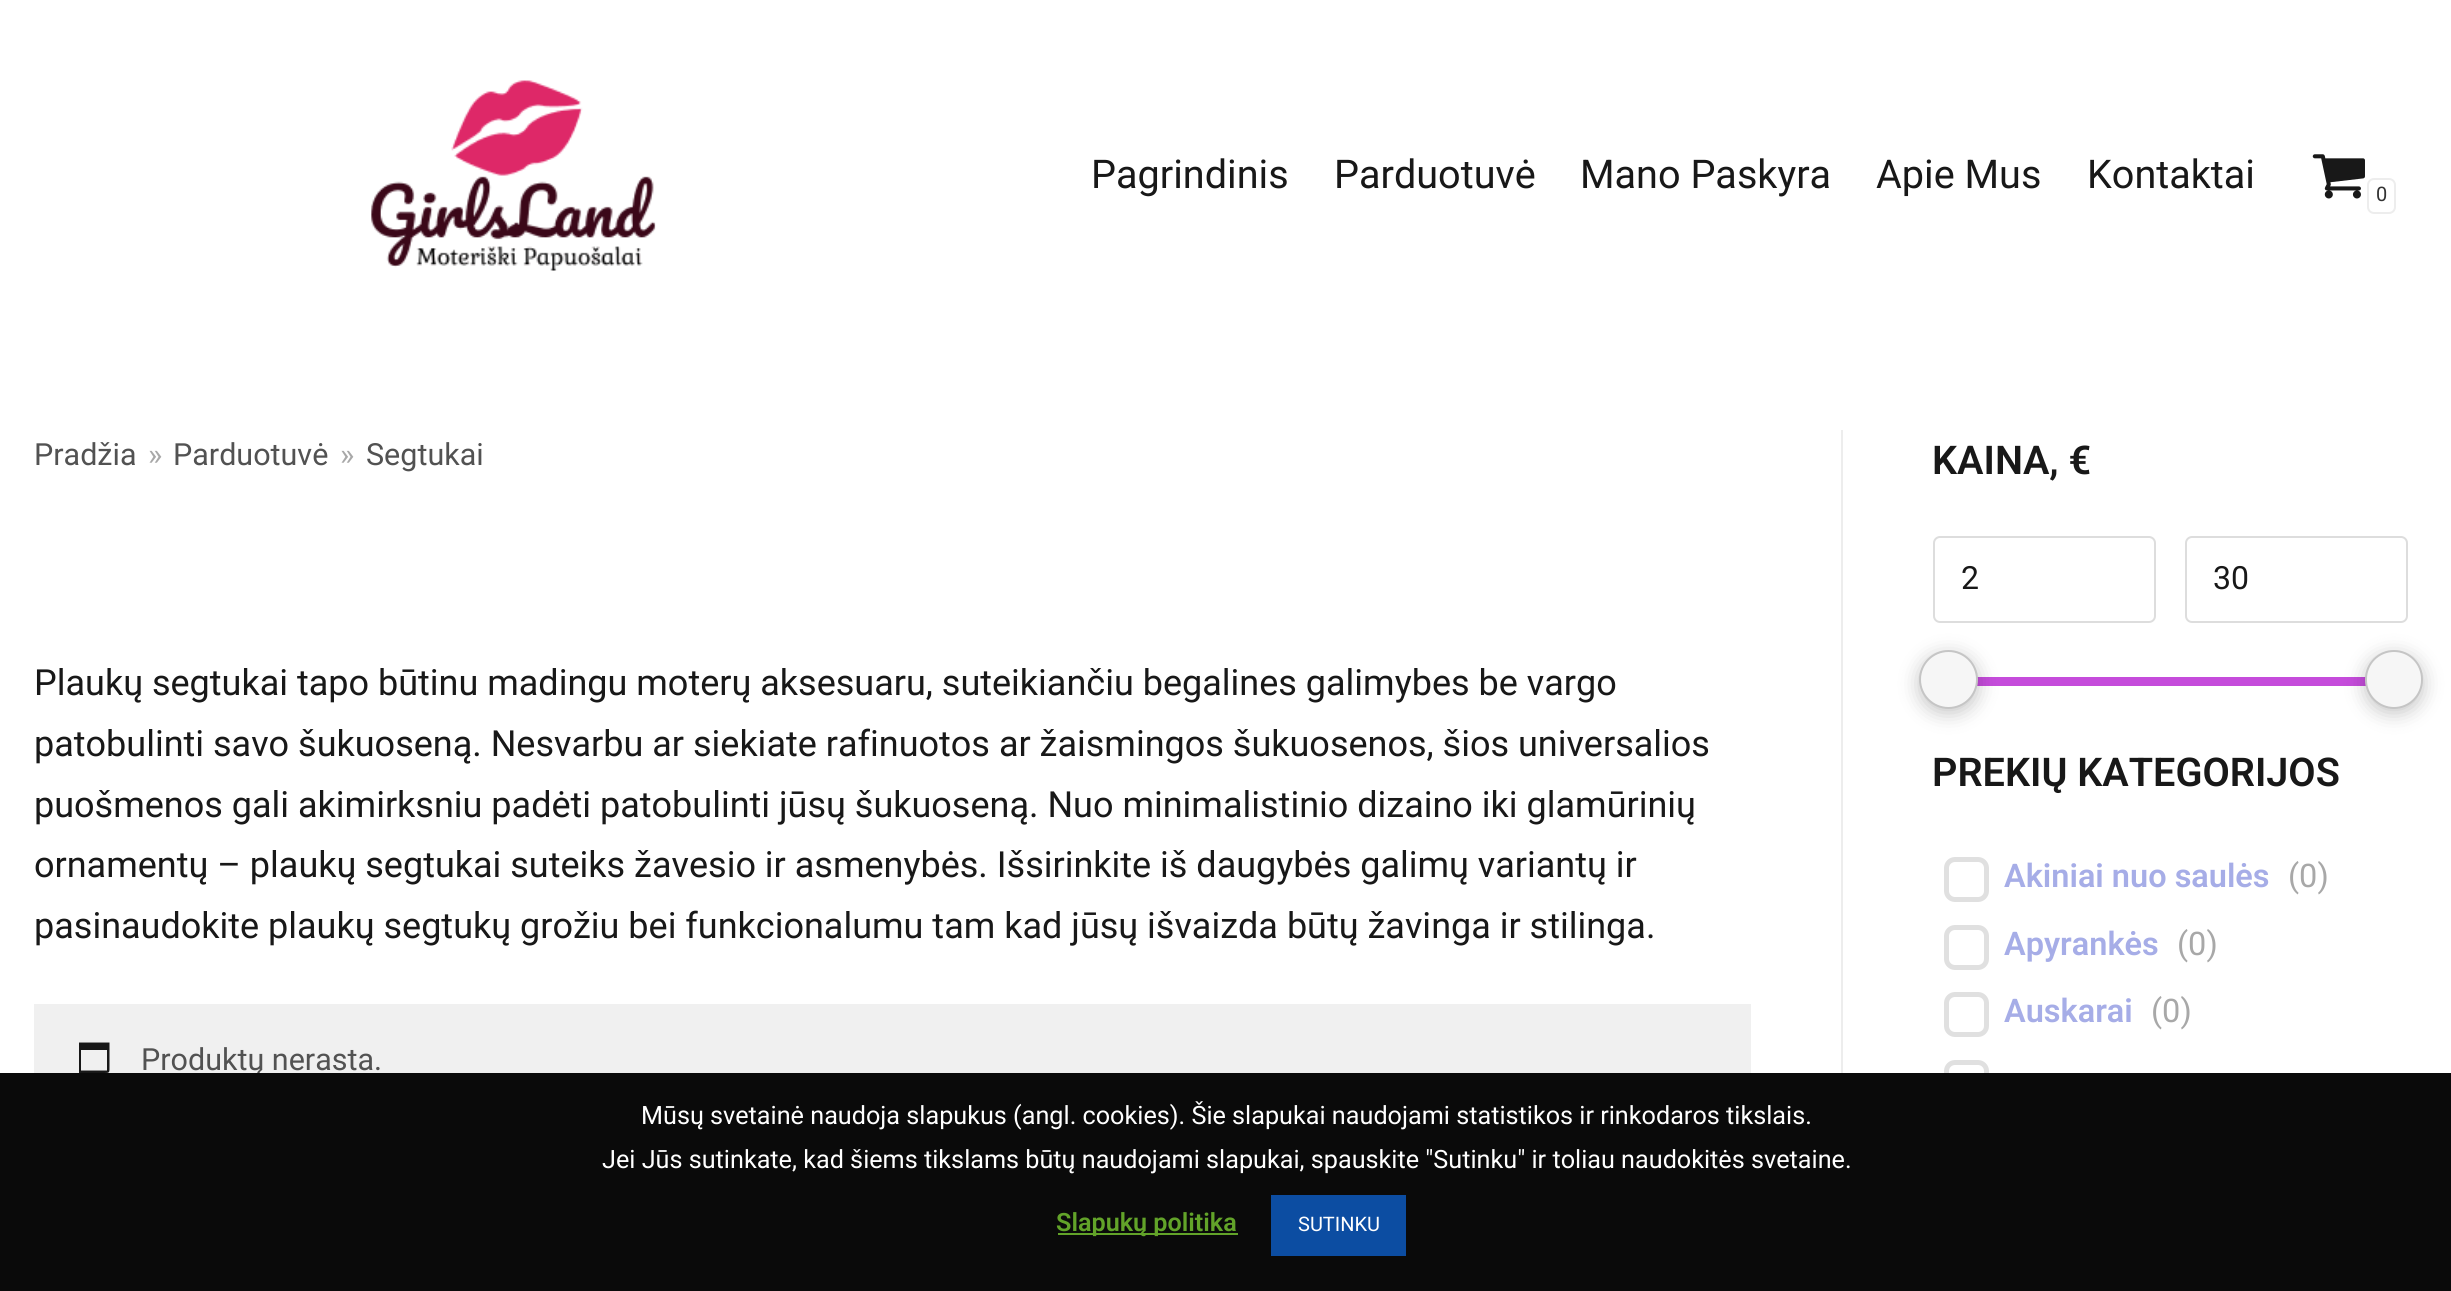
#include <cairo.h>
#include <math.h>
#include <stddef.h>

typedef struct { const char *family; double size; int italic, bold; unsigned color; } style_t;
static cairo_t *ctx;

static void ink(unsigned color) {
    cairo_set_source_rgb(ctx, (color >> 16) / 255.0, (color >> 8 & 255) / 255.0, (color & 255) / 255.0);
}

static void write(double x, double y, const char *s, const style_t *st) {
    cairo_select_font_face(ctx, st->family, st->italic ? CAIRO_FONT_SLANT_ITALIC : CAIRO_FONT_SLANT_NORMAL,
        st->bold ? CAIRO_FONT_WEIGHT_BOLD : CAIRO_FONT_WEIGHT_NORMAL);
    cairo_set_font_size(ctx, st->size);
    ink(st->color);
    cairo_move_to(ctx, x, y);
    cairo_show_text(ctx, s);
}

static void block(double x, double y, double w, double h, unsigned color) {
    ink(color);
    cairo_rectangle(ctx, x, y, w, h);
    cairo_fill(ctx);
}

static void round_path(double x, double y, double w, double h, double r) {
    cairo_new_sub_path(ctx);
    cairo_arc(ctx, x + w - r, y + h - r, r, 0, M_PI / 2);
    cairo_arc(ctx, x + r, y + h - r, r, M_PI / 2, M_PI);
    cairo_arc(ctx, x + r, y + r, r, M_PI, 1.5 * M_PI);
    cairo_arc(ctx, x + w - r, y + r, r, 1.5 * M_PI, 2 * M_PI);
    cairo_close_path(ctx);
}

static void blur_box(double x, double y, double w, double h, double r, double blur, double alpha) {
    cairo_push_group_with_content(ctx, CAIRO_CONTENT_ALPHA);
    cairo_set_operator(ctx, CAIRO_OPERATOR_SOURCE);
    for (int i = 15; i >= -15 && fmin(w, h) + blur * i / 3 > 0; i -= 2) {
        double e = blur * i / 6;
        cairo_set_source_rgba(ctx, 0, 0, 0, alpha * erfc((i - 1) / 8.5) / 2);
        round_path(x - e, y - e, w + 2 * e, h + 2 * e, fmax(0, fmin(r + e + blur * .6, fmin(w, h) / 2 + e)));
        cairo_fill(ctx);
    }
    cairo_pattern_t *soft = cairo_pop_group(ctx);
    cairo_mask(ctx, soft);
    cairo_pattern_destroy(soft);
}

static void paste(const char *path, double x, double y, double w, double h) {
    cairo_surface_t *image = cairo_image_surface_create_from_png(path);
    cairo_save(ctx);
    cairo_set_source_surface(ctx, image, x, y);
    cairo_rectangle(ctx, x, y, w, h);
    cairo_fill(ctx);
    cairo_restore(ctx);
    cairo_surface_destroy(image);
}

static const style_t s1 = {"Roboto", 39.6, 0, 0, 0x181818};
static const style_t s2 = {"Roboto", 20, 0, 0, 0x333333};
static const style_t s3 = {"Roboto", 30.5, 0, 0, 0x525252};
static const style_t s4 = {"Roboto", 30.5, 0, 0, 0xa8a8a8};
static const style_t s5 = {"Roboto", 36, 0, 0, 0x181818};
static const style_t s6 = {"Roboto SemiBold", 39.6, 0, 0, 0x181818};
static const style_t s7 = {"Roboto", 32, 0, 0, 0x181818};
static const style_t s8 = {"Roboto SemiBold", 32.5, 0, 0, 0xa6ade7};
static const style_t s9 = {"Roboto", 32.5, 0, 0, 0xa8a8a8};
static const style_t s10 = {"Roboto", 25.2, 0, 0, 0xffffff};
static const style_t s11 = {"Roboto SemiBold", 25.2, 0, 0, 0x62a329};
static const style_t s12 = {"Roboto", 20, 0, 0, 0xffffff};

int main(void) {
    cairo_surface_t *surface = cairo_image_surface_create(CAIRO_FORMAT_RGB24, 2451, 1291);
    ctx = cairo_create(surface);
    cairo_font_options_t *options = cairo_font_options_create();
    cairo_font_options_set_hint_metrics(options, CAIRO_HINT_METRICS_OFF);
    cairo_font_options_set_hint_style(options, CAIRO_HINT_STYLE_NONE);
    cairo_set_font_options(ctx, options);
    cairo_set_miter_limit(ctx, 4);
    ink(0xffffff);
    cairo_paint(ctx);
    paste("pic1.png", 371, 80, 285, 191);
    write(1091, 188, "Pagrindinis", &s1);
    write(1334, 188, "Parduotuvė", &s1);
    write(1580, 188, "Mano Paskyra", &s1);
    write(1876, 188, "Apie Mus", &s1);
    write(2087, 188, "Kontaktai", &s1);
    paste("pic2.png", 2312, 154, 53, 45);
    round_path(2368, 179, 27, 34, 6);
    ink(0xededed);
    cairo_stroke(ctx);
    write(2376, 201, "0", &s2);
    write(34, 465, "Pradžia", &s3);
    write(148, 465, "»", &s4);
    write(173, 465, "Parduotuvė", &s3);
    write(340, 465, "»", &s4);
    write(366, 465, "Segtukai", &s3);
    write(34, 695, "Plaukų segtukai tapo būtinu madingu moterų aksesuaru, suteikiančiu begalines galimybes be vargo", &s5);
    write(34, 756, "patobulinti savo šukuoseną. Nesvarbu ar siekiate rafinuotos ar žaismingos šukuosenos, šios universalios", &s5);
    write(34, 817, "puošmenos gali akimirksniu padėti patobulinti jūsų šukuoseną. Nuo minimalistinio dizaino iki glamūrinių", &s5);
    write(34, 877, "ornamentų – plaukų segtukai suteiks žavesio ir asmenybės. Išsirinkite iš daugybės galimų variantų ir", &s5);
    write(34, 938, "pasinaudokite plaukų segtukų grožiu bei funkcionalumu tam kad jūsų išvaizda būtų žavinga ir stilinga.", &s5);
    block(34, 1004, 1717, 69, 0xf0f0f0);
    ink(0x181818);
    cairo_new_path(ctx);
    cairo_move_to(ctx, 107, 1050);
    cairo_line_to(ctx, 81, 1050);
    cairo_line_to(ctx, 81, 1070.5);
    cairo_line_to(ctx, 107, 1070.5);
    cairo_close_path(ctx);
    cairo_move_to(ctx, 109.5, 1042.5);
    cairo_line_to(ctx, 109.5, 1065.5);
    cairo_curve_to(ctx, 109.5, 1073.5, 110, 1073, 102.5, 1073);
    cairo_line_to(ctx, 79, 1073);
    cairo_line_to(ctx, 79, 1042.5);
    cairo_close_path(ctx);
    cairo_fill(ctx);
    write(141, 1070, "Produktų nerasta.", &s3);
    block(1841, 430, 2, 643, 0xededed);
    write(1932, 474, "KAINA, €", &s6);
    round_path(1934, 537, 221, 85, 6);
    ink(0xdddddd);
    cairo_stroke(ctx);
    write(1961, 589, "2", &s7);
    round_path(2186, 537, 221, 85, 6);
    ink(0xdddddd);
    cairo_stroke(ctx);
    write(2213, 589, "30", &s7);
    block(1977, 677, 389, 9, 0xc54cdb);
    ink(0x000000);
    blur_box(1919, 655, 59, 58, 29, 10, 0.23);
    ink(0xf6f6f6);
    cairo_arc(ctx, 1948.5, 679.5, 28.5, 0, 2 * M_PI);
    cairo_fill_preserve(ctx);
    ink(0xc5c5c5);
    cairo_stroke(ctx);
    ink(0x000000);
    blur_box(2365, 655, 58, 58, 29, 10, 0.23);
    ink(0xf6f6f6);
    round_path(2366, 651, 56, 57, 28);
    cairo_fill_preserve(ctx);
    ink(0xc5c5c5);
    cairo_stroke(ctx);
    write(1932, 786, "PREKIŲ KATEGORIJOS", &s6);
    round_path(1946.5, 859.5, 40, 40, 8.5);
    ink(0xe0e0e0);
    cairo_set_line_width(ctx, 5);
    cairo_stroke(ctx);
    write(2004, 887, "Akiniai nuo saulės", &s8);
    write(2288, 887, "(0)", &s9);
    round_path(1946.5, 927.5, 40, 40, 8.5);
    ink(0xe0e0e0);
    cairo_stroke(ctx);
    write(2004, 955, "Apyrankės", &s8);
    write(2177, 955, "(0)", &s9);
    round_path(1946.5, 994.5, 40, 40, 8.5);
    ink(0xe0e0e0);
    cairo_stroke(ctx);
    write(2004, 1022, "Auskarai", &s8);
    write(2151, 1022, "(0)", &s9);
    round_path(1946.5, 1062.5, 40, 40, 8.5);
    ink(0xe0e0e0);
    cairo_stroke(ctx);
    block(0, 1073, 2451, 218, 0x0a0a0a);
    write(641, 1124, "Mūsų svetainė naudoja slapukus (angl. cookies). Šie slapukai naudojami statistikos ir rinkodaros tikslais.", &s10);
    write(602, 1168, "Jei Jūs sutinkate, kad šiems tikslams būtų naudojami slapukai, spauskite \"Sutinku\" ir toliau naudokitės svetaine.", &s10);
    block(1058, 1233, 180, 2, 0x62a329);
    write(1056, 1231, "Slapukų politika", &s11);
    block(1271, 1195, 135, 61, 0x0c4da2);
    write(1298, 1231, "SUTINKU", &s12);
    cairo_surface_write_to_png(surface, "screenshot.png");
    cairo_font_options_destroy(options);
    cairo_destroy(ctx);
    cairo_surface_destroy(surface);
    return 0;
}
